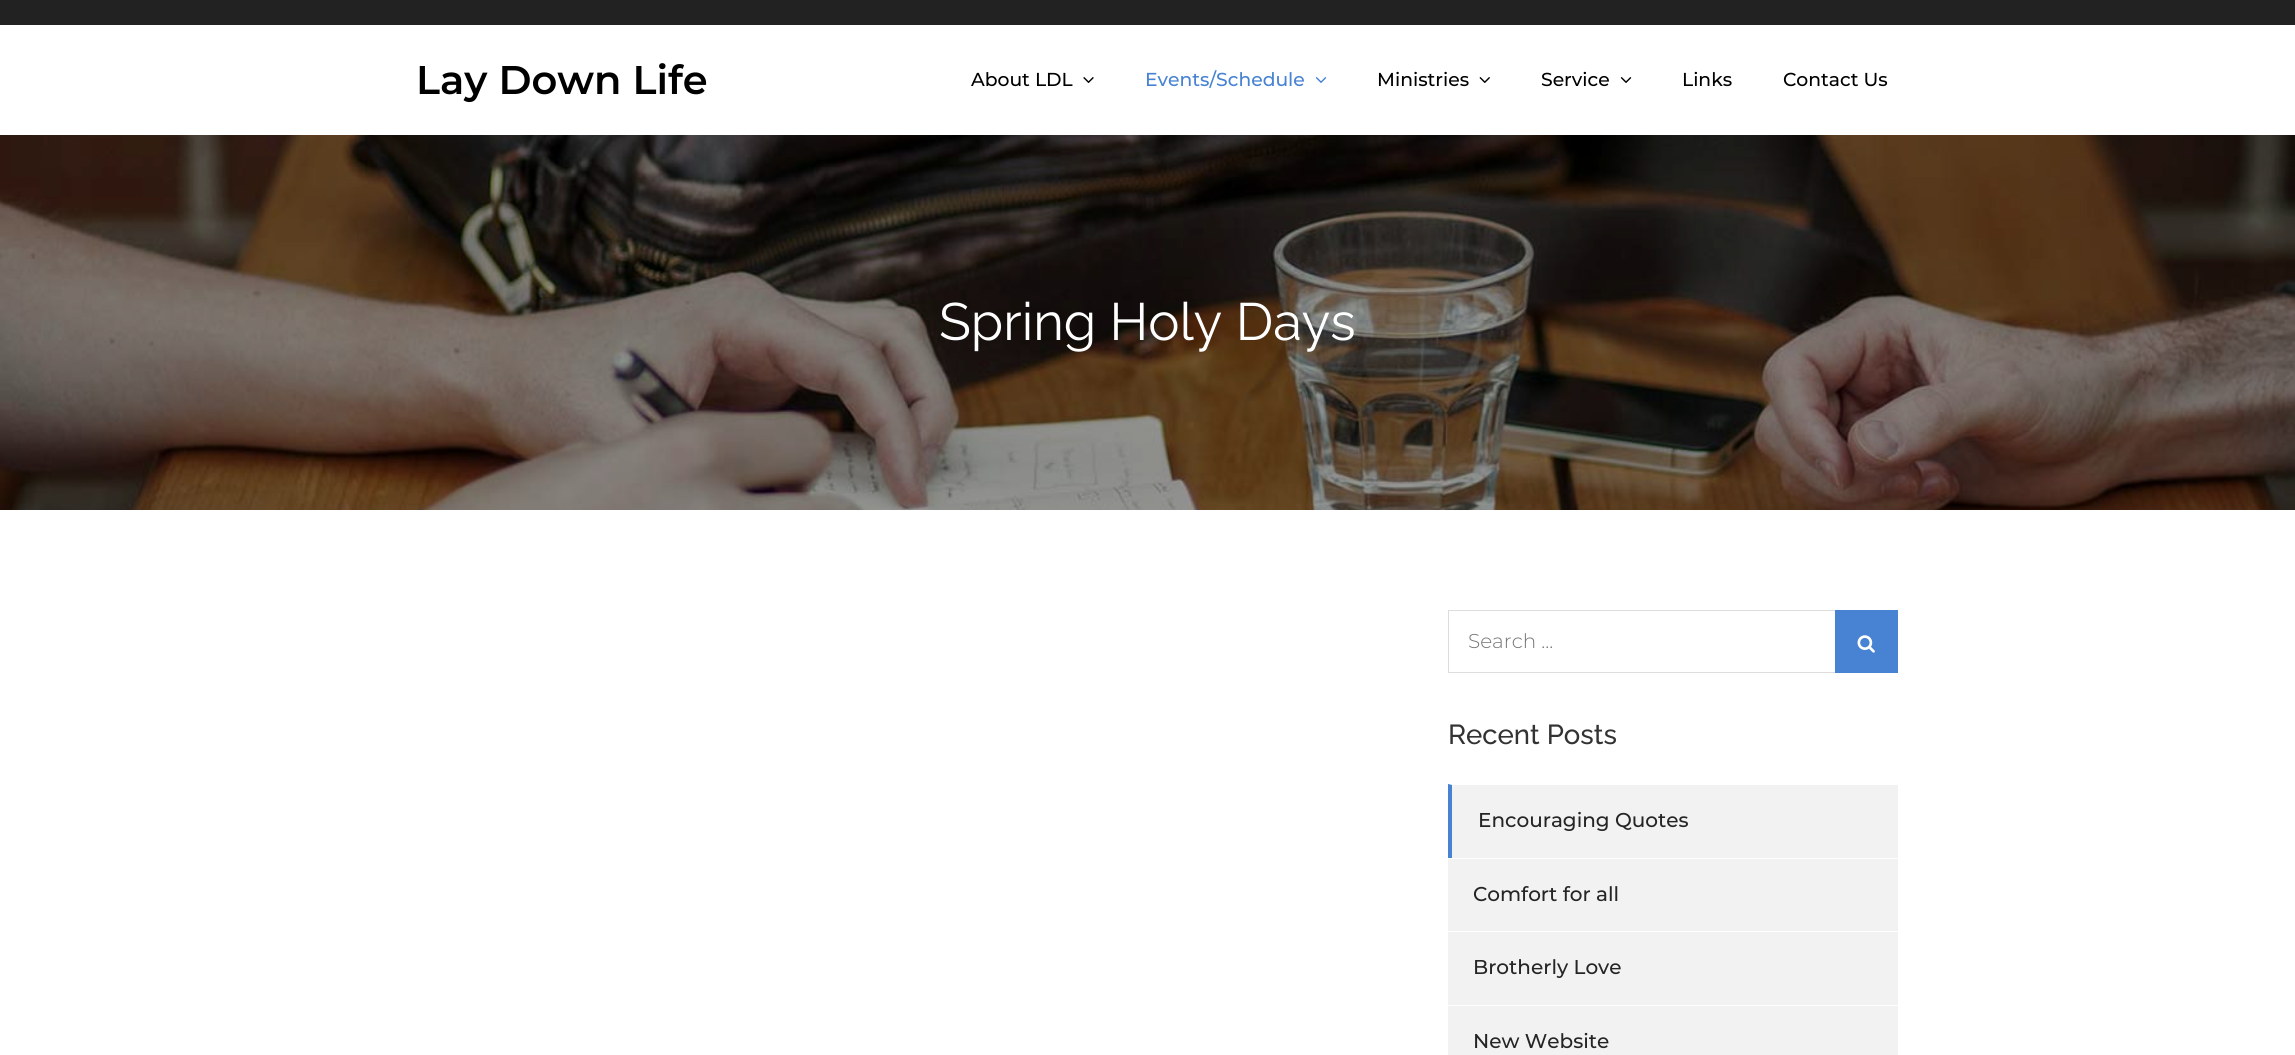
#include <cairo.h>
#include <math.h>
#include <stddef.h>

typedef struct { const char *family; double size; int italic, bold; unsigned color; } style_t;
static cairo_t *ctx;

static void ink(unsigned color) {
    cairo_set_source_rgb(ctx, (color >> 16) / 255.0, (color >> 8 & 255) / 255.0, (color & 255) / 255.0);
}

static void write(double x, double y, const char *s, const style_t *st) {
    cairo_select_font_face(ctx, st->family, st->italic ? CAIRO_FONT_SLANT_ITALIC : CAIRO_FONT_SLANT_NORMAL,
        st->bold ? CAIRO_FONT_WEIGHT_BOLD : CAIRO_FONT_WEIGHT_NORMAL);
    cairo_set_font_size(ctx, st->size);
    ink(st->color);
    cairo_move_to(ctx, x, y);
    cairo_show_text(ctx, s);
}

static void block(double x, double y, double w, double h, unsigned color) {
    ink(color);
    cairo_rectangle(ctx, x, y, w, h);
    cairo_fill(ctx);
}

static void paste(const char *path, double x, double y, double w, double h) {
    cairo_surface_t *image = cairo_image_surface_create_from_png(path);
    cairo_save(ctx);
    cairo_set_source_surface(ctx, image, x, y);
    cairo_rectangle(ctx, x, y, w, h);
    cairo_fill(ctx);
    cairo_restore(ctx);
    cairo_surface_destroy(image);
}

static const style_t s1 = {"Montserrat SemiBold", 40, 0, 0, 0x000000};
static const style_t s2 = {"Montserrat Medium", 18.75, 0, 0, 0x000000};
static const style_t s3 = {"Montserrat Medium", 18.75, 0, 0, 0x4782d3};
static const style_t s4 = {"Raleway", 52.5, 0, 0, 0xffffff};
static const style_t s5 = {"Montserrat Light", 20, 0, 0, 0x757575};
static const style_t s6 = {"Raleway Medium", 27.5, 0, 0, 0x333333};
static const style_t s7 = {"Montserrat Medium", 20, 0, 0, 0x252525};

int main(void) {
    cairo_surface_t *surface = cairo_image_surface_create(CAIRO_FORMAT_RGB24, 2295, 1055);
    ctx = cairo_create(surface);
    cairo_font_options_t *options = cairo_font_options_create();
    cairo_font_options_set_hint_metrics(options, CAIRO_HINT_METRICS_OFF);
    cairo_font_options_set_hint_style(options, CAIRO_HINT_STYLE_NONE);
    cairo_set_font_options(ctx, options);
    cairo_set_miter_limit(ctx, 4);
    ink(0xffffff);
    cairo_paint(ctx);
    block(0, 0, 2295, 25, 0x222222);
    write(416, 94, "Lay Down Life", &s1);
    write(971, 86, "About LDL", &s2);
    paste("pic1.png", 1083, 77, 11, 6);
    write(1145, 86, "Events/Schedule", &s3);
    paste("pic2.png", 1315, 77, 12, 6);
    write(1377, 86, "Ministries", &s2);
    paste("pic3.png", 1479, 77, 11, 6);
    write(1541, 86, "Service", &s2);
    paste("pic4.png", 1620, 77, 12, 6);
    write(1682, 86, "Links", &s2);
    write(1783, 86, "Contact Us", &s2);
    paste("pic5.png", 0, 135, 2295, 375);
    write(939, 340, "Spring Holy Days", &s4);
    cairo_rectangle(ctx, 1448.5, 610.5, 449, 62);
    ink(0xdddddd);
    cairo_set_line_width(ctx, 1);
    cairo_stroke(ctx);
    write(1468, 648, "Search ...", &s5);
    block(1835, 610, 63, 63, 0x4782d3);
    paste("pic6.png", 1857, 635, 18, 18);
    write(1448, 744, "Recent Posts", &s6);
    block(1448, 784, 450, 74, 0xf2f2f2);
    ink(0xffffff);
    cairo_new_path(ctx);
    cairo_move_to(ctx, 1448, 784);
    cairo_line_to(ctx, 1898, 784);
    cairo_line_to(ctx, 1898, 785);
    cairo_line_to(ctx, 1452, 785);
    cairo_close_path(ctx);
    cairo_fill(ctx);
    ink(0x4782d3);
    cairo_new_path(ctx);
    cairo_move_to(ctx, 1448, 858);
    cairo_line_to(ctx, 1448, 784);
    cairo_line_to(ctx, 1452, 785);
    cairo_line_to(ctx, 1452, 858);
    cairo_close_path(ctx);
    cairo_fill(ctx);
    write(1478, 827, "Encouraging Quotes", &s7);
    block(1448, 859, 450, 72, 0xf2f2f2);
    write(1473, 901, "Comfort for all", &s7);
    block(1448, 932, 450, 73, 0xf2f2f2);
    write(1473, 974, "Brotherly Love", &s7);
    block(1448, 1006, 450, 49, 0xf2f2f2);
    write(1473, 1048, "New Website", &s7);
    cairo_surface_write_to_png(surface, "screenshot.png");
    cairo_font_options_destroy(options);
    cairo_destroy(ctx);
    cairo_surface_destroy(surface);
    return 0;
}
